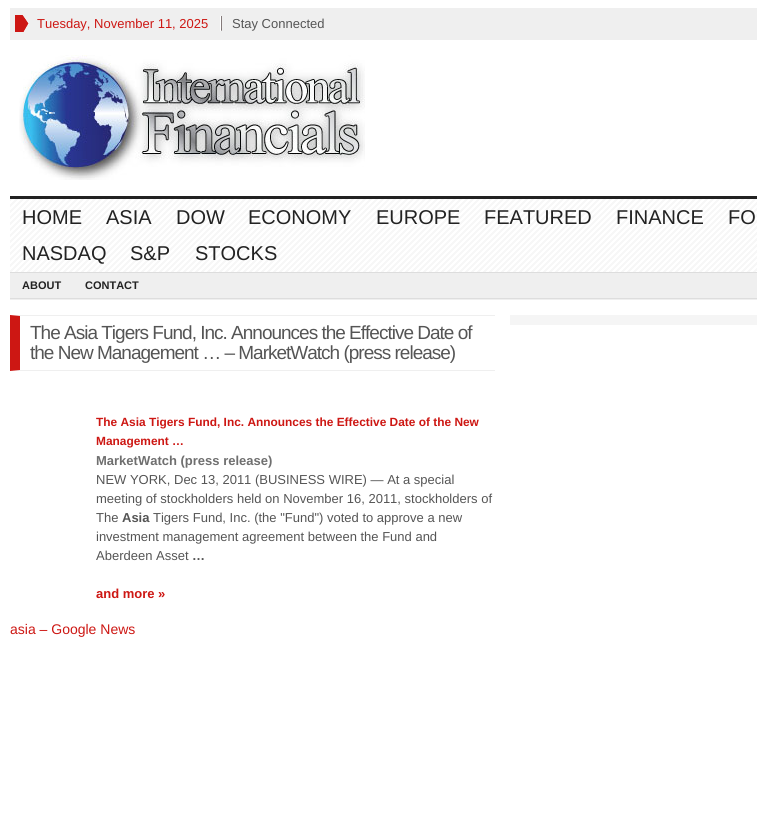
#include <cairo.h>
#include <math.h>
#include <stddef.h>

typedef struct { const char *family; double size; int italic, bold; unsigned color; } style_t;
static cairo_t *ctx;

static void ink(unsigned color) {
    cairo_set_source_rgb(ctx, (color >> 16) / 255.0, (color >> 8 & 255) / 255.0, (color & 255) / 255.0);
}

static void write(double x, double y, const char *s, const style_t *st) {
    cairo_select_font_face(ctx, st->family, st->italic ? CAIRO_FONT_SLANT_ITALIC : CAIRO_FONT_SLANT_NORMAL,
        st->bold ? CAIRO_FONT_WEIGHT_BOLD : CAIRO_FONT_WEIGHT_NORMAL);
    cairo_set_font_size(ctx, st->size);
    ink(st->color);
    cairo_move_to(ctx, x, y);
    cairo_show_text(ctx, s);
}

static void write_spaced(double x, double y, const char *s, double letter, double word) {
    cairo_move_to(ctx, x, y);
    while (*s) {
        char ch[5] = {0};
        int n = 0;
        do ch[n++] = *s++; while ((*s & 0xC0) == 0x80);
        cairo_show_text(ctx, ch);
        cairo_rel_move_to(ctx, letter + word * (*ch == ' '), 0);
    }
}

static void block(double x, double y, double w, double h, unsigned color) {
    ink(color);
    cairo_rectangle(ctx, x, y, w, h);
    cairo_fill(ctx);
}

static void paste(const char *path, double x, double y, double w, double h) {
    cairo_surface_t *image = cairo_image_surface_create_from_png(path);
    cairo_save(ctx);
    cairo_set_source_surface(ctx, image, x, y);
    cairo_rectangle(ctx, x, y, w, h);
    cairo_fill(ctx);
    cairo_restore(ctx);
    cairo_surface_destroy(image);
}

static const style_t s1 = {"Liberation Sans", 13, 0, 0, 0xcd1713};
static const style_t s2 = {"Liberation Sans", 13, 0, 0, 0x555555};
static const style_t s3 = {"Liberation Sans", 20, 0, 0, 0x222222};
static const style_t s4 = {"Liberation Sans", 11, 0, 1, 0x222222};
static const style_t s5 = {"Liberation Sans", 11.9, 0, 1, 0xcd1713};
static const style_t s6 = {"Liberation Sans", 13, 0, 1, 0x6f6f6f};
static const style_t s7 = {"Liberation Sans", 13, 0, 1, 0x555555};
static const style_t s8 = {"Liberation Sans", 13, 0, 1, 0xcd1713};
static const style_t s9 = {"Liberation Sans", 14, 0, 0, 0xcd1713};

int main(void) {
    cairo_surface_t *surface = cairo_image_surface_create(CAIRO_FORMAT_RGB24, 757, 833);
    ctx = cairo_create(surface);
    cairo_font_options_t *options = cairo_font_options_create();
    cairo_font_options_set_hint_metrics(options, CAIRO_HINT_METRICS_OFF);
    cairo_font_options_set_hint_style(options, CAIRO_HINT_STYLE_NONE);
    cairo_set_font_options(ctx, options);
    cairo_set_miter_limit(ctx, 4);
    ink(0xffffff);
    cairo_paint(ctx);
    block(10, 8, 747, 32, 0xefefef);
    paste("pic1.png", 15, 15, 14, 17);
    write(37, 28, "Tuesday, November 11, 2025", &s1);
    paste("pic2.png", 220, 16, 2, 15);
    write(232, 28, "Stay Connected", &s2);
    block(10, 196, 747, 3, 0x222222);
    paste("pic3.png", 19, 55, 346, 125);
    paste("pic4.png", 10, 199, 747, 73);
    block(10, 272, 747, 1, 0xdddddd);
    write(22, 224, "HOME", &s3);
    write(106, 224, "ASIA", &s3);
    write(176, 224, "DOW", &s3);
    write(248, 224, "ECONOMY", &s3);
    write(376, 224, "EUROPE", &s3);
    write(484, 224, "FEATURED", &s3);
    write(616, 224, "FINANCE", &s3);
    write(728, 224, "FO", &s3);
    write(22, 260, "NASDAQ", &s3);
    write(130, 260, "S&P", &s3);
    write(195, 260, "STOCKS", &s3);
    block(10, 273, 747, 27, 0xefefef);
    block(10, 298, 747, 1, 0xdddddd);
    write(22, 289, "ABOUT", &s4);
    write(85, 289, "CONTACT", &s4);
    block(510, 315, 247, 10, 0xf5f5f5);
    ink(0xefefef);
    cairo_new_path(ctx);
    cairo_move_to(ctx, 10, 315);
    cairo_line_to(ctx, 495, 315);
    cairo_line_to(ctx, 495, 316);
    cairo_line_to(ctx, 20, 316);
    cairo_close_path(ctx);
    cairo_fill(ctx);
    cairo_new_path(ctx);
    cairo_move_to(ctx, 495, 371);
    cairo_line_to(ctx, 10, 371);
    cairo_line_to(ctx, 20, 370);
    cairo_line_to(ctx, 495, 370);
    cairo_close_path(ctx);
    cairo_fill(ctx);
    ink(0xcd1713);
    cairo_new_path(ctx);
    cairo_move_to(ctx, 10, 371);
    cairo_line_to(ctx, 10, 315);
    cairo_line_to(ctx, 20, 316);
    cairo_line_to(ctx, 20, 370);
    cairo_close_path(ctx);
    cairo_fill(ctx);
    cairo_select_font_face(ctx, "Liberation Sans", CAIRO_FONT_SLANT_NORMAL, CAIRO_FONT_WEIGHT_NORMAL);
    cairo_set_font_size(ctx, 19);
    ink(0x555555);
    write_spaced(30, 339, "The Asia Tigers Fund, Inc. Announces the Effective Date of", -1, 0);
    write_spaced(30, 359, "the New Management … – MarketWatch (press release)", -1, 0);
    write(96, 426, "The Asia Tigers Fund, Inc. Announces the Effective Date of the New", &s5);
    write(96, 445, "Management …", &s5);
    write(96, 465, "MarketWatch (press release)", &s6);
    write(96, 484, "NEW YORK, Dec 13, 2011 (BUSINESS WIRE) — At a special", &s2);
    write(96, 503, "meeting of stockholders held on November 16, 2011, stockholders of", &s2);
    write(96, 522, "The", &s2);
    write(122, 522, "Asia", &s7);
    write(153, 522, "Tigers Fund, Inc. (the \"Fund\") voted to approve a new", &s2);
    write(96, 541, "investment management agreement between the Fund and", &s2);
    write(96, 560, "Aberdeen Asset", &s2);
    write(192, 560, "…", &s7);
    write(96, 598, "and more »", &s8);
    write(10, 634, "asia – Google News", &s9);
    cairo_surface_write_to_png(surface, "screenshot.png");
    cairo_font_options_destroy(options);
    cairo_destroy(ctx);
    cairo_surface_destroy(surface);
    return 0;
}
